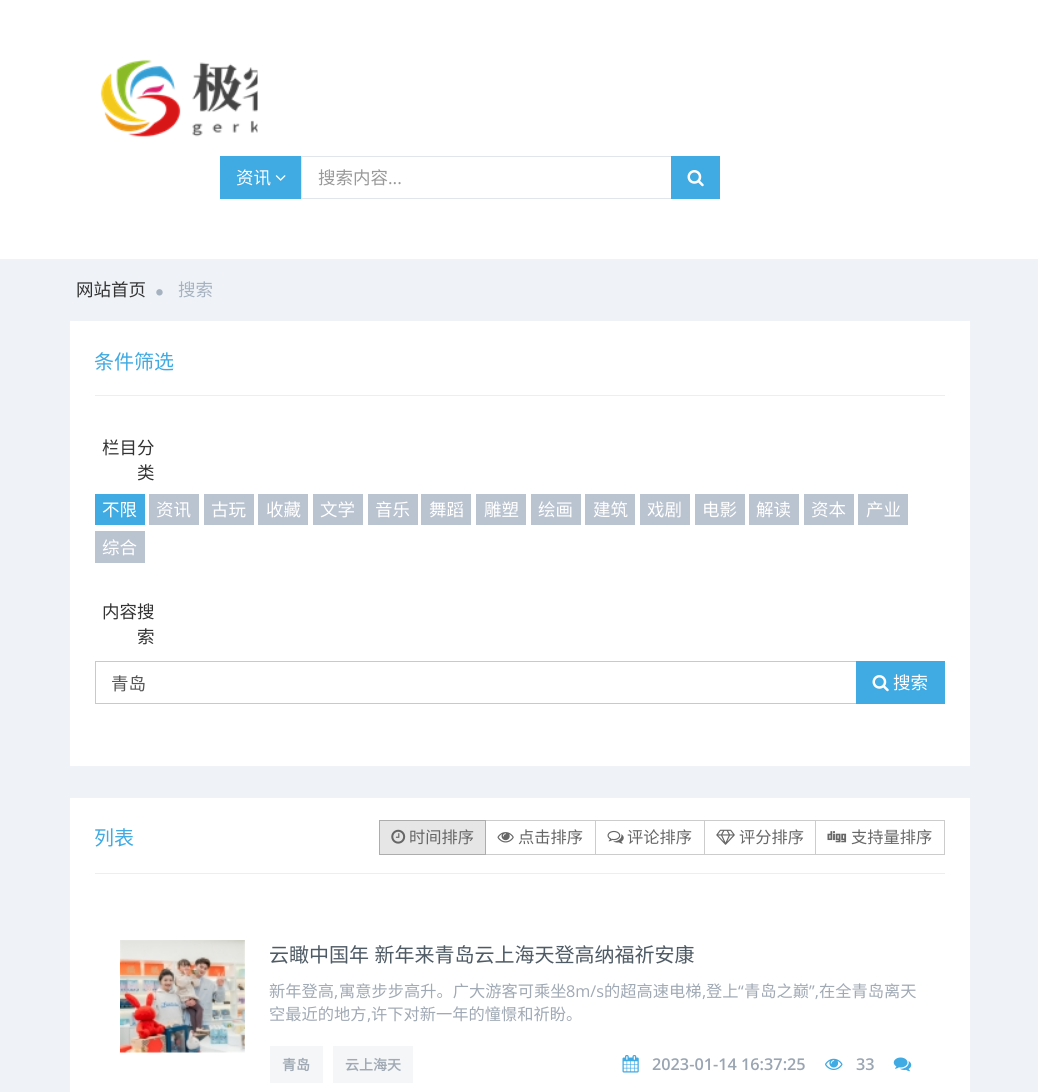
#include <cairo.h>
#include <math.h>
#include <stddef.h>

typedef struct { const char *family; double size; int italic, bold; unsigned color; } style_t;
static cairo_t *ctx;

static void ink(unsigned color) {
    cairo_set_source_rgb(ctx, (color >> 16) / 255.0, (color >> 8 & 255) / 255.0, (color & 255) / 255.0);
}

static void write(double x, double y, const char *s, const style_t *st) {
    cairo_select_font_face(ctx, st->family, st->italic ? CAIRO_FONT_SLANT_ITALIC : CAIRO_FONT_SLANT_NORMAL,
        st->bold ? CAIRO_FONT_WEIGHT_BOLD : CAIRO_FONT_WEIGHT_NORMAL);
    cairo_set_font_size(ctx, st->size);
    ink(st->color);
    cairo_move_to(ctx, x, y);
    cairo_show_text(ctx, s);
}

static void write_spaced(double x, double y, const char *s, double letter, double word) {
    cairo_move_to(ctx, x, y);
    while (*s) {
        char ch[5] = {0};
        int n = 0;
        do ch[n++] = *s++; while ((*s & 0xC0) == 0x80);
        cairo_show_text(ctx, ch);
        cairo_rel_move_to(ctx, letter + word * (*ch == ' '), 0);
    }
}

static void block(double x, double y, double w, double h, unsigned color) {
    ink(color);
    cairo_rectangle(ctx, x, y, w, h);
    cairo_fill(ctx);
}

static void paste(const char *path, double x, double y, double w, double h) {
    cairo_surface_t *image = cairo_image_surface_create_from_png(path);
    cairo_save(ctx);
    cairo_set_source_surface(ctx, image, x, y);
    cairo_rectangle(ctx, x, y, w, h);
    cairo_fill(ctx);
    cairo_restore(ctx);
    cairo_surface_destroy(image);
}

static const style_t s1 = {"Noto Sans CJK SC", 17.5, 0, 0, 0xffffff};
static const style_t s2 = {"Noto Sans CJK SC", 17.5, 0, 0, 0x999999};
static const style_t s3 = {"Open Sans", 17.5, 0, 0, 0x999999};
static const style_t s4 = {"Noto Sans CJK SC", 17.5, 0, 0, 0x333333};
static const style_t s5 = {"Noto Sans CJK SC", 17.5, 0, 0, 0xa7b2c0};
static const style_t s6 = {"Noto Sans CJK SC", 20, 0, 0, 0x40aae2};
static const style_t s7 = {"Noto Sans CJK SC", 17.5, 0, 0, 0x555555};
static const style_t s8 = {"Noto Sans CJK SC", 16.25, 0, 0, 0x666666};
static const style_t s9 = {"Noto Sans CJK SC", 16.25, 0, 0, 0xa0a9b4};
static const style_t s10 = {"Open Sans", 16.25, 0, 0, 0xa0a9b4};
static const style_t s11 = {"Noto Sans CJK SC", 14, 0, 1, 0xa0a9b4};
static const style_t s12 = {"Open Sans SemiBold", 16.25, 0, 0, 0x9aa5b2};

int main(void) {
    cairo_surface_t *surface = cairo_image_surface_create(CAIRO_FORMAT_RGB24, 1038, 1092);
    ctx = cairo_create(surface);
    cairo_font_options_t *options = cairo_font_options_create();
    cairo_font_options_set_hint_metrics(options, CAIRO_HINT_METRICS_OFF);
    cairo_font_options_set_hint_style(options, CAIRO_HINT_STYLE_NONE);
    cairo_set_font_options(ctx, options);
    cairo_set_miter_limit(ctx, 4);
    ink(0xffffff);
    cairo_paint(ctx);
    paste("pic1.png", 100, 59, 158, 78);
    block(220, 156, 81, 43, 0x40aae2);
    write(236, 184, "资讯", &s1);
    paste("pic2.png", 275, 175, 11, 6);
    cairo_rectangle(ctx, 301.5, 156.5, 371, 42);
    ink(0xe1e5ec);
    cairo_set_line_width(ctx, 1);
    cairo_stroke(ctx);
    write(318, 184, "搜索内容", &s2);
    write(388, 184, "...", &s3);
    block(671, 156, 49, 43, 0x40aae2);
    paste("pic3.png", 687, 170, 17, 17);
    block(0, 259, 1038, 833, 0xeff3f8);
    write(76, 296, "网站首页", &s4);
    paste("pic4.png", 156, 289, 7, 7);
    write(178, 296, "搜索", &s5);
    block(70, 321, 900, 445, 0xffffff);
    block(95, 395, 850, 1, 0xeeeeee);
    write(94, 369, "条件筛选", &s6);
    write(102, 454, "栏目分", &s4);
    write(137, 479, "类", &s4);
    block(95, 494, 50, 31, 0x40aae2);
    write(102, 516, "不限", &s1);
    block(149, 494, 50, 31, 0xbac3d0);
    write(156, 516, "资讯", &s1);
    block(204, 494, 50, 31, 0xbac3d0);
    write(211, 516, "古玩", &s1);
    block(258, 494, 50, 31, 0xbac3d0);
    write(266, 516, "收藏", &s1);
    block(313, 494, 50, 31, 0xbac3d0);
    write(320, 516, "文学", &s1);
    block(368, 494, 50, 31, 0xbac3d0);
    write(375, 516, "音乐", &s1);
    block(421, 494, 50, 31, 0xbac3d0);
    write(429, 516, "舞蹈", &s1);
    block(476, 494, 50, 31, 0xbac3d0);
    write(484, 516, "雕塑", &s1);
    block(531, 494, 50, 31, 0xbac3d0);
    write(538, 516, "绘画", &s1);
    block(585, 494, 50, 31, 0xbac3d0);
    write(593, 516, "建筑", &s1);
    block(640, 494, 50, 31, 0xbac3d0);
    write(647, 516, "戏剧", &s1);
    block(695, 494, 50, 31, 0xbac3d0);
    write(702, 516, "电影", &s1);
    block(749, 494, 50, 31, 0xbac3d0);
    write(756, 516, "解读", &s1);
    block(804, 494, 50, 31, 0xbac3d0);
    write(811, 516, "资本", &s1);
    block(858, 494, 50, 31, 0xbac3d0);
    write(866, 516, "产业", &s1);
    block(95, 531, 50, 32, 0xbac3d0);
    write(102, 554, "综合", &s1);
    write(102, 618, "内容搜", &s4);
    write(137, 643, "索", &s4);
    cairo_rectangle(ctx, 95.5, 661.5, 762, 42);
    ink(0xc2cad8);
    cairo_stroke(ctx);
    write(111, 690, "青岛", &s7);
    block(856, 661, 89, 43, 0x40aae2);
    paste("pic3.png", 872, 675, 17, 17);
    write(893, 689, "搜索", &s1);
    block(70, 798, 900, 294, 0xffffff);
    block(95, 873, 850, 1, 0xeeeeee);
    write(94, 845, "列表", &s6);
    cairo_rectangle(ctx, 485.5, 820.5, 110, 34);
    ink(0xcccccc);
    cairo_stroke(ctx);
    ink(0xe6e6e6);
    cairo_rectangle(ctx, 379.5, 820.5, 106, 34);
    cairo_fill_preserve(ctx);
    ink(0xadadad);
    cairo_stroke(ctx);
    paste("pic5.png", 391, 829, 15, 15);
    write(409, 843, "时间排序", &s8);
    paste("pic6.png", 497, 832, 17, 11);
    write(518, 843, "点击排序", &s8);
    cairo_rectangle(ctx, 595.5, 820.5, 109, 34);
    ink(0xcccccc);
    cairo_stroke(ctx);
    paste("pic7.png", 607, 830, 17, 14);
    write(627, 843, "评论排序", &s8);
    cairo_rectangle(ctx, 704.5, 820.5, 111, 34);
    ink(0xcccccc);
    cairo_stroke(ctx);
    paste("pic8.png", 716, 829, 19, 16);
    write(739, 843, "评分排序", &s8);
    cairo_rectangle(ctx, 815.5, 820.5, 129, 34);
    ink(0xcccccc);
    cairo_stroke(ctx);
    paste("pic9.png", 827, 831, 20, 12);
    write(851, 843, "支持量排序", &s8);
    paste("pic10.png", 120, 940, 125, 113);
    cairo_set_font_size(ctx, 20);
    ink(0x4e5a64);
    write_spaced(269, 962, "云瞰中国年 新年来青岛云上海天登高纳福祈安康", 0, 1);
    write(269, 997, "新年登高", &s9);
    write(334, 997, ",", &s10);
    write(339, 997, "寓意步步高升。广大游客可乘坐", &s9);
    write(566, 997, "8m/s", &s10);
    write(604, 997, "的超高速电梯", &s9);
    write(702, 997, ",", &s10);
    write(706, 997, "登上", &s9);
    write(738, 997, "“", &s10);
    write(744, 997, "青岛之巅", &s9);
    write(809, 997, "”,", &s10);
    write(819, 997, "在全青岛离天", &s9);
    write(269, 1020, "空最近的地方", &s9);
    write(367, 1020, ",", &s10);
    write(371, 1020, "许下对新一年的憧憬和祈盼。", &s9);
    block(270, 1046, 53, 37, 0xf4f6f8);
    write(282, 1070, "青岛", &s11);
    block(333, 1046, 80, 37, 0xf4f6f8);
    write(345, 1070, "云上海天", &s11);
    paste("pic11.png", 622, 1055, 17, 18);
    write(652, 1070, "2023-01-14 16:37:25", &s12);
    paste("pic12.png", 825, 1058, 18, 12);
    write(856, 1070, "33", &s12);
    paste("pic13.png", 893, 1057, 19, 15);
    cairo_surface_write_to_png(surface, "screenshot.png");
    cairo_font_options_destroy(options);
    cairo_destroy(ctx);
    cairo_surface_destroy(surface);
    return 0;
}
